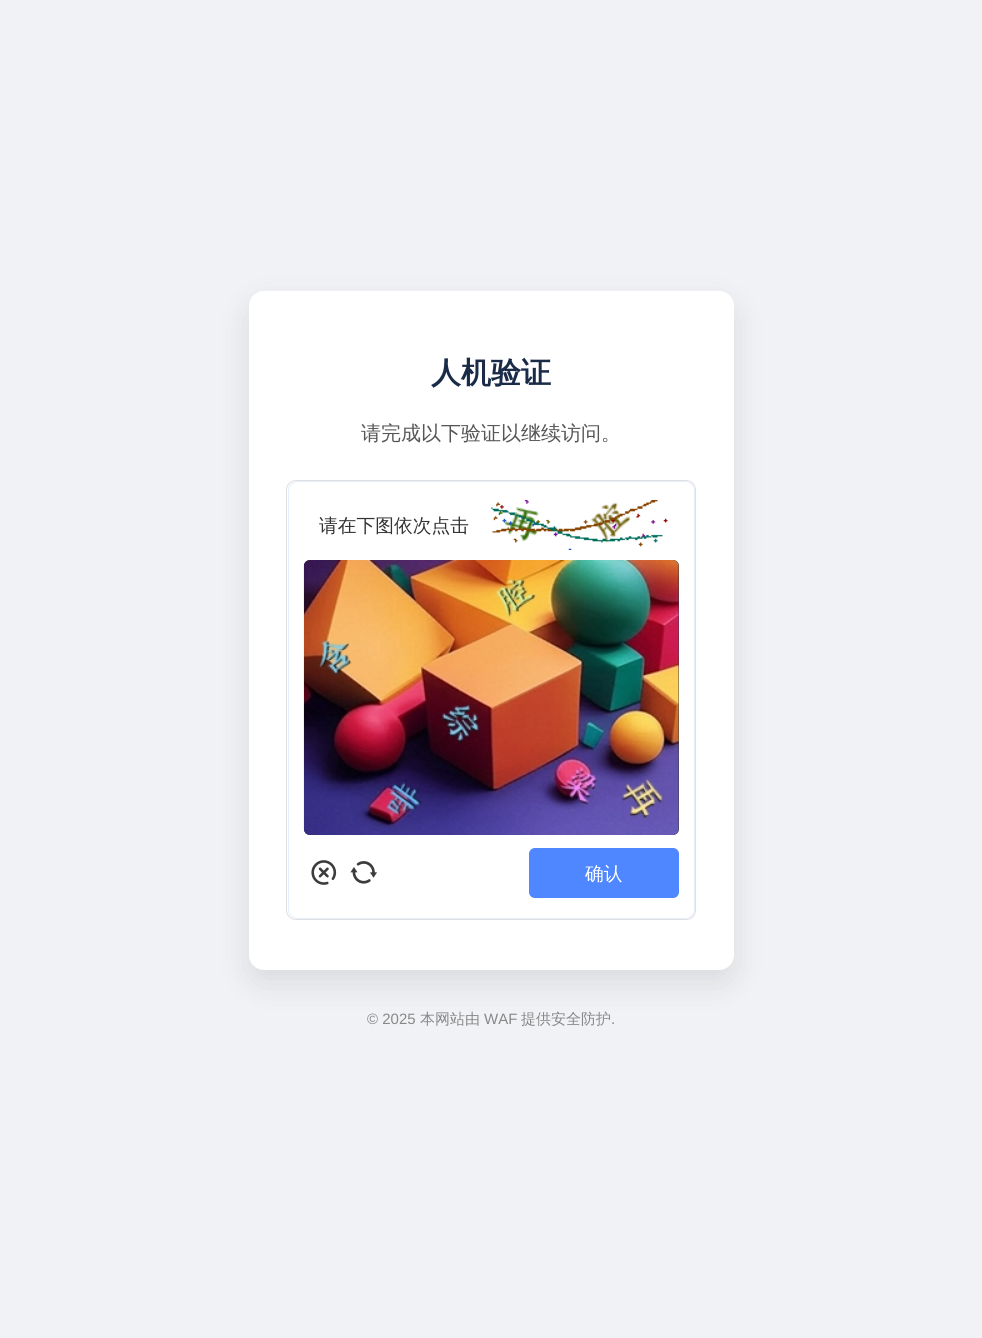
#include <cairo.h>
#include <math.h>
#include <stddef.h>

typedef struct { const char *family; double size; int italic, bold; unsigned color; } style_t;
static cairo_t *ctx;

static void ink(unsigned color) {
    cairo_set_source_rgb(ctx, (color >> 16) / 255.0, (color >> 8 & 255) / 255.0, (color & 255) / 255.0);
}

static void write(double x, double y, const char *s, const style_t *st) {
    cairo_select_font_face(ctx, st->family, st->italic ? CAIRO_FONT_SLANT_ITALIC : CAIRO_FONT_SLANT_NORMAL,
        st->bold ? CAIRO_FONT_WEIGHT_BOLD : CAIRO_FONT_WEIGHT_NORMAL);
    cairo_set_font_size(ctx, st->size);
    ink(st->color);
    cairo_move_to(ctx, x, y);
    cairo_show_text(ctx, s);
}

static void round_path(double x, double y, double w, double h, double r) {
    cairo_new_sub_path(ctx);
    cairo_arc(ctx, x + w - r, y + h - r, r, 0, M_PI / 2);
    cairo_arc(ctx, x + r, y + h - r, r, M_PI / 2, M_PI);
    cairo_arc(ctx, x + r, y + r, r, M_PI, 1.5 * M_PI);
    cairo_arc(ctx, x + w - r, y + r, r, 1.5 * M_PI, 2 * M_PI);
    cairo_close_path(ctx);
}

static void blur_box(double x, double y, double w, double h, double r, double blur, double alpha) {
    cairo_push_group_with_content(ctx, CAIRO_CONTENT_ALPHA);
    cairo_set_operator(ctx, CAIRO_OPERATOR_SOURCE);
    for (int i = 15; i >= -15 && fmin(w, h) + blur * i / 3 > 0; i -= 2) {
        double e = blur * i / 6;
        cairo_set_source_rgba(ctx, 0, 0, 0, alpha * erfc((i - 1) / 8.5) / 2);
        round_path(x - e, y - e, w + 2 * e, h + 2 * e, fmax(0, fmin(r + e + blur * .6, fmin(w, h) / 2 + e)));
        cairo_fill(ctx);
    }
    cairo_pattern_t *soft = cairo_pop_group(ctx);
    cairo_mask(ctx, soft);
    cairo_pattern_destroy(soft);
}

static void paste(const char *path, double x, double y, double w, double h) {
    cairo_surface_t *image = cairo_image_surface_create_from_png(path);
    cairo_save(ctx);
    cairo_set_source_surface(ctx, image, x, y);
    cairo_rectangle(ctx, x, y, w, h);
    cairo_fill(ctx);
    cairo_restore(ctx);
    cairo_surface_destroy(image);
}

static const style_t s1 = {"WenQuanYi Zen Hei", 30, 0, 1, 0x1a2b48};
static const style_t s2 = {"WenQuanYi Zen Hei Medium", 20, 0, 0, 0x555555};
static const style_t s3 = {"WenQuanYi Zen Hei Medium", 18.75, 0, 0, 0x333333};
static const style_t s4 = {"WenQuanYi Zen Hei Medium", 18.75, 0, 0, 0xffffff};
static const style_t s5 = {"Liberation Sans", 15, 0, 0, 0x888888};
static const style_t s6 = {"WenQuanYi Zen Hei Medium", 15, 0, 0, 0x888888};

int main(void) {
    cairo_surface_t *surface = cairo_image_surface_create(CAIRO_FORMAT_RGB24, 982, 1338);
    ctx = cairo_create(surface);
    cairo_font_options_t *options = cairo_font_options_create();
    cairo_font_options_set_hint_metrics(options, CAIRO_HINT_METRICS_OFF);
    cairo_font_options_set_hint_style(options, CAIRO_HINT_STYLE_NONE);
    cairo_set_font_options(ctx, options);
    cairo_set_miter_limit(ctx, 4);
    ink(0xf0f2f5);
    cairo_paint(ctx);
    ink(0x000000);
    blur_box(249, 304, 485, 679, 15, 15.5, 0.1);
    ink(0xffffff);
    round_path(249, 291, 485, 679, 15);
    cairo_fill(ctx);
    write(431, 383, "人机验证", &s1);
    write(361, 440, "请完成以下验证以继续访问。", &s2);
    round_path(286.5, 480.5, 409, 439, 9.5);
    ink(0xe0e0e0);
    cairo_set_line_width(ctx, 1);
    cairo_stroke(ctx);
    cairo_save(ctx);
    round_path(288, 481, 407, 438, 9);
    cairo_clip(ctx);
    ink(0x646464);
    blur_box(288, 481, 407, 438, 10, 12.5, 0.1);
    cairo_restore(ctx);
    cairo_save(ctx);
    round_path(288, 481, 407, 438, 9);
    cairo_clip(ctx);
    ink(0xffffff);
    round_path(288, 481, 407, 438, 10);
    cairo_fill(ctx);
    cairo_restore(ctx);
    round_path(288.5, 481.5, 406, 437, 9.5);
    cairo_set_source_rgba(ctx, 0.808, 0.875, 0.996, 0.5);
    cairo_stroke(ctx);
    write(319, 532, "请在下图依次点击", &s3);
    paste("pic1.png", 491, 500, 177, 50);
    ink(0x34383e);
    round_path(304, 560, 375, 275, 6);
    cairo_fill(ctx);
    paste("pic2.png", 303, 560, 376, 275);
    paste("pic3.png", 311, 860, 26, 25);
    paste("pic4.png", 350, 861, 27, 23);
    ink(0x4e87ff);
    round_path(529.5, 848.5, 149, 49, 5.5);
    cairo_fill_preserve(ctx);
    cairo_stroke(ctx);
    write(585, 880, "确认", &s4);
    write(367, 1024, "© 2025", &s5);
    write(420, 1024, "本网站由", &s6);
    write(484, 1024, "WAF", &s5);
    write(521, 1024, "提供安全防护", &s6);
    write(611, 1024, ".", &s5);
    cairo_surface_write_to_png(surface, "screenshot.png");
    cairo_font_options_destroy(options);
    cairo_destroy(ctx);
    cairo_surface_destroy(surface);
    return 0;
}
